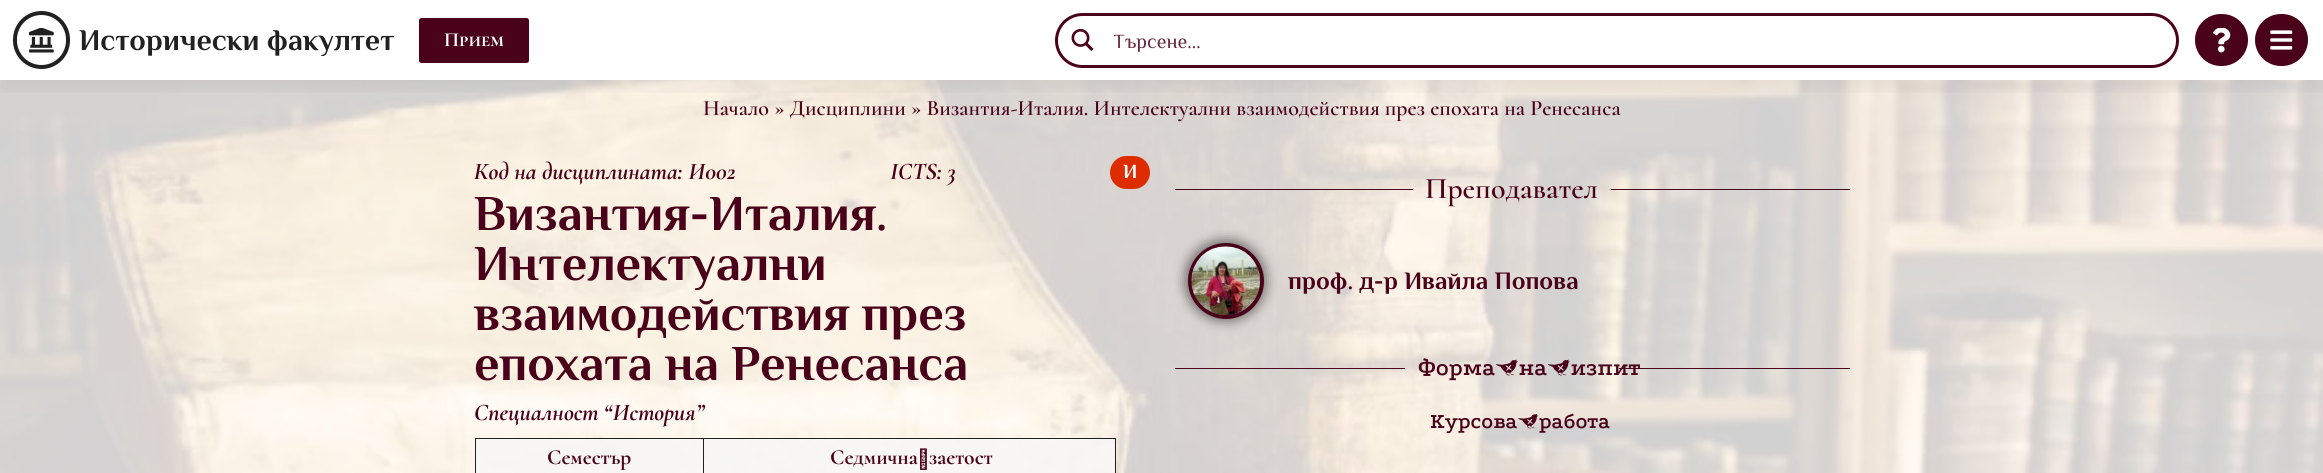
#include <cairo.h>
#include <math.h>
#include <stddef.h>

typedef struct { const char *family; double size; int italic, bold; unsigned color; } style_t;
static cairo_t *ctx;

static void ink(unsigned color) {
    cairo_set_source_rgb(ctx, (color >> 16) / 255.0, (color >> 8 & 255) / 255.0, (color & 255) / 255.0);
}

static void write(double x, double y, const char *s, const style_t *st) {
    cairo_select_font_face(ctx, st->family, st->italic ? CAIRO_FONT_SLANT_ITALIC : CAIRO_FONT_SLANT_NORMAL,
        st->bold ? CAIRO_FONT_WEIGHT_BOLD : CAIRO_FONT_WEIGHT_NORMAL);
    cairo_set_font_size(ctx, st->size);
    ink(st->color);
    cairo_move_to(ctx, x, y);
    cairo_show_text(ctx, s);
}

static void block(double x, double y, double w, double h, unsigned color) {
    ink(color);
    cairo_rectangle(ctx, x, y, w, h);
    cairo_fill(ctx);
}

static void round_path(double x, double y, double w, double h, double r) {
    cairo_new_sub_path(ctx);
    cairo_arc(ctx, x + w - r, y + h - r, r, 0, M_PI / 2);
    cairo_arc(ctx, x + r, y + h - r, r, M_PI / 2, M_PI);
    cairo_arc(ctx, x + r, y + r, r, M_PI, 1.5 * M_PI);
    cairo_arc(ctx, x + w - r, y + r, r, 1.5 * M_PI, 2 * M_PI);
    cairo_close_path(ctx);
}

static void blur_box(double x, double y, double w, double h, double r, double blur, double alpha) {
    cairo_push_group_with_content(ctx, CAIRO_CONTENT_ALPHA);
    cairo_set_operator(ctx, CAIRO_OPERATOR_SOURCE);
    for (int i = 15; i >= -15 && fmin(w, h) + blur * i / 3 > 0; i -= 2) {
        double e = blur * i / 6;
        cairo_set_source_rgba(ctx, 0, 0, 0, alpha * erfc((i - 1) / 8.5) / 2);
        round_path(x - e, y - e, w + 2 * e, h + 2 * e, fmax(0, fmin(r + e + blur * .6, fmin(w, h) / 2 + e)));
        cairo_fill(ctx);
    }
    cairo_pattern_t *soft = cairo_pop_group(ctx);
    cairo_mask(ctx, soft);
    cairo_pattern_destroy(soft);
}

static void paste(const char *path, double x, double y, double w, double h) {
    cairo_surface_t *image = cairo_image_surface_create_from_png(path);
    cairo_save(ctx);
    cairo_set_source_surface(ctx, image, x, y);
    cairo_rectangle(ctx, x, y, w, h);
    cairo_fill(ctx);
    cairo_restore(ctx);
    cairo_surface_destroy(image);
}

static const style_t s1 = {"Philosopher", 30, 0, 1, 0x212121};
static const style_t s2 = {"Cormorant SC", 20, 0, 1, 0xffffff};
static const style_t s3 = {"Philosopher", 20, 0, 0, 0x64283c};
static const style_t s4 = {"Cormorant SemiBold", 22, 0, 0, 0x49021a};
static const style_t s5 = {"Cormorant", 24, 1, 1, 0x49021a};
static const style_t s6 = {"Philosopher", 20, 0, 1, 0xffffff};
static const style_t s7 = {"Philosopher", 50, 0, 1, 0x49021a};
static const style_t s8 = {"Cormorant", 21.5, 0, 1, 0x49021a};
static const style_t s9 = {"Cormorant SemiBold", 30, 0, 0, 0x49021a};
static const style_t s10 = {"Philosopher", 25, 0, 1, 0x49021a};
static const style_t s11 = {"Podkova SemiBold", 24, 0, 0, 0x49021a};
static const style_t s12 = {"Podkova SemiBold", 22, 0, 0, 0x49021a};

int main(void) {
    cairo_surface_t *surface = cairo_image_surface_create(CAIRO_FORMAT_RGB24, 2323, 473);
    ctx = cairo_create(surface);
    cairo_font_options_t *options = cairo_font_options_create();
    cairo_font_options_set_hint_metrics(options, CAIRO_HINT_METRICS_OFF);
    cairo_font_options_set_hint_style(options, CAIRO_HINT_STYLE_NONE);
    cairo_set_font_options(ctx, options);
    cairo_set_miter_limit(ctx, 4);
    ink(0xffffff);
    cairo_paint(ctx);
    paste("pic5.png", 0, 80, 2323, 393);
    cairo_save(ctx);
    cairo_rectangle(ctx, 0, 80, 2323, 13);
    cairo_clip(ctx);
    ink(0x000000);
    blur_box(0, 11, 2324, 80, 0, 6, 0.05);
    cairo_restore(ctx);
    round_path(15, 13, 53, 54, 26.5);
    ink(0x212121);
    cairo_set_line_width(ctx, 4);
    cairo_stroke(ctx);
    paste("pic1.png", 29, 28, 25, 25);
    write(79, 50, "Исторически факултет", &s1);
    ink(0x49021a);
    round_path(419, 18, 110, 45, 2.5);
    cairo_fill(ctx);
    write(444, 46, "Прием", &s2);
    round_path(1056.5, 14.5, 1121, 52, 26);
    ink(0x49021a);
    cairo_set_line_width(ctx, 3);
    cairo_stroke(ctx);
    cairo_save(ctx);
    cairo_rectangle(ctx, 1065, 23, 35, 35);
    cairo_clip(ctx);
    cairo_set_source_rgba(ctx, 1, 1, 1, 0.64);
    cairo_new_path(ctx);
    cairo_move_to(ctx, 1064, 24);
    cairo_line_to(ctx, 1064, 56);
    cairo_curve_to(ctx, 1060, 52, 1058, 46, 1058, 40);
    cairo_curve_to(ctx, 1058, 26, 1069, 15, 1083, 15);
    cairo_line_to(ctx, 1224, 15);
    cairo_line_to(ctx, 1224, 65);
    cairo_line_to(ctx, 1083, 65);
    cairo_curve_to(ctx, 1077, 65, 1071, 63, 1067, 59);
    cairo_line_to(ctx, 1099, 59);
    cairo_line_to(ctx, 1099, 24);
    cairo_close_path(ctx);
    cairo_fill(ctx);
    cairo_restore(ctx);
    paste("pic2.png", 1071, 28, 23, 23);
    cairo_save(ctx);
    cairo_rectangle(ctx, 1114, 30, 1044, 23);
    cairo_clip(ctx);
    write(1113, 48, "Търсене...", &s3);
    cairo_restore(ctx);
    round_path(2195, 14, 53, 52, 26);
    cairo_fill(ctx);
    paste("pic3.png", 2213, 28, 18, 25);
    round_path(2255, 14, 53, 52, 26);
    cairo_fill(ctx);
    paste("pic4.png", 2270, 30, 23, 20);
    write(703, 115, "Начало » Дисциплини » Византия-Италия. Интелектуални взаимодействия през епохата на Ренесанса", &s4);
    write(474, 179, "Код на дисциплината: И002", &s5);
    write(890, 179, "ICTS: 3", &s5);
    ink(0xdd2c00);
    round_path(1110, 156, 40, 33, 16.5);
    cairo_fill(ctx);
    write(1123, 178, "И", &s6);
    write(474, 230, "Византия-Италия.", &s7);
    write(474, 280, "Интелектуални", &s7);
    write(474, 330, "взаимодействия през", &s7);
    write(474, 380, "епохата на Ренесанса", &s7);
    write(474, 420, "Специалност “История”", &s5);
    cairo_set_source_rgba(ctx, 0.969, 0.969, 0.969, 0.87);
    cairo_rectangle(ctx, 476, 439, 639, 34);
    cairo_fill(ctx);
    block(703, 438, 413, 1, 0x212121);
    block(703, 438, 1, 35, 0x212121);
    block(475, 438, 229, 1, 0x212121);
    block(475, 438, 1, 35, 0x212121);
    write(547, 464, "Семестър", &s8);
    block(1115, 438, 1, 35, 0x212121);
    write(830, 464, "Седмична заетост", &s8);
    block(1175, 189, 238, 1, 0x49021a);
    write(1425, 198, "Преподавател", &s9);
    block(1611, 189, 239, 1, 0x49021a);
    ink(0x000000);
    blur_box(1185, 240, 81, 81, 40.5, 6, 0.5);
    cairo_arc(ctx, 1226, 281, 36, 0, 2 * M_PI);
    ink(0x49021a);
    cairo_set_line_width(ctx, 4);
    cairo_stroke(ctx);
    paste("pic6.png", 1191, 246, 69, 69);
    write(1288, 289, "проф. д-р Ивайла Попова", &s10);
    block(1175, 368, 230, 1, 0x49021a);
    write(1418, 375, "Форма на изпит", &s11);
    block(1619, 368, 231, 1, 0x49021a);
    write(1430, 428, "Курсова работа", &s12);
    cairo_surface_write_to_png(surface, "screenshot.png");
    cairo_font_options_destroy(options);
    cairo_destroy(ctx);
    cairo_surface_destroy(surface);
    return 0;
}
